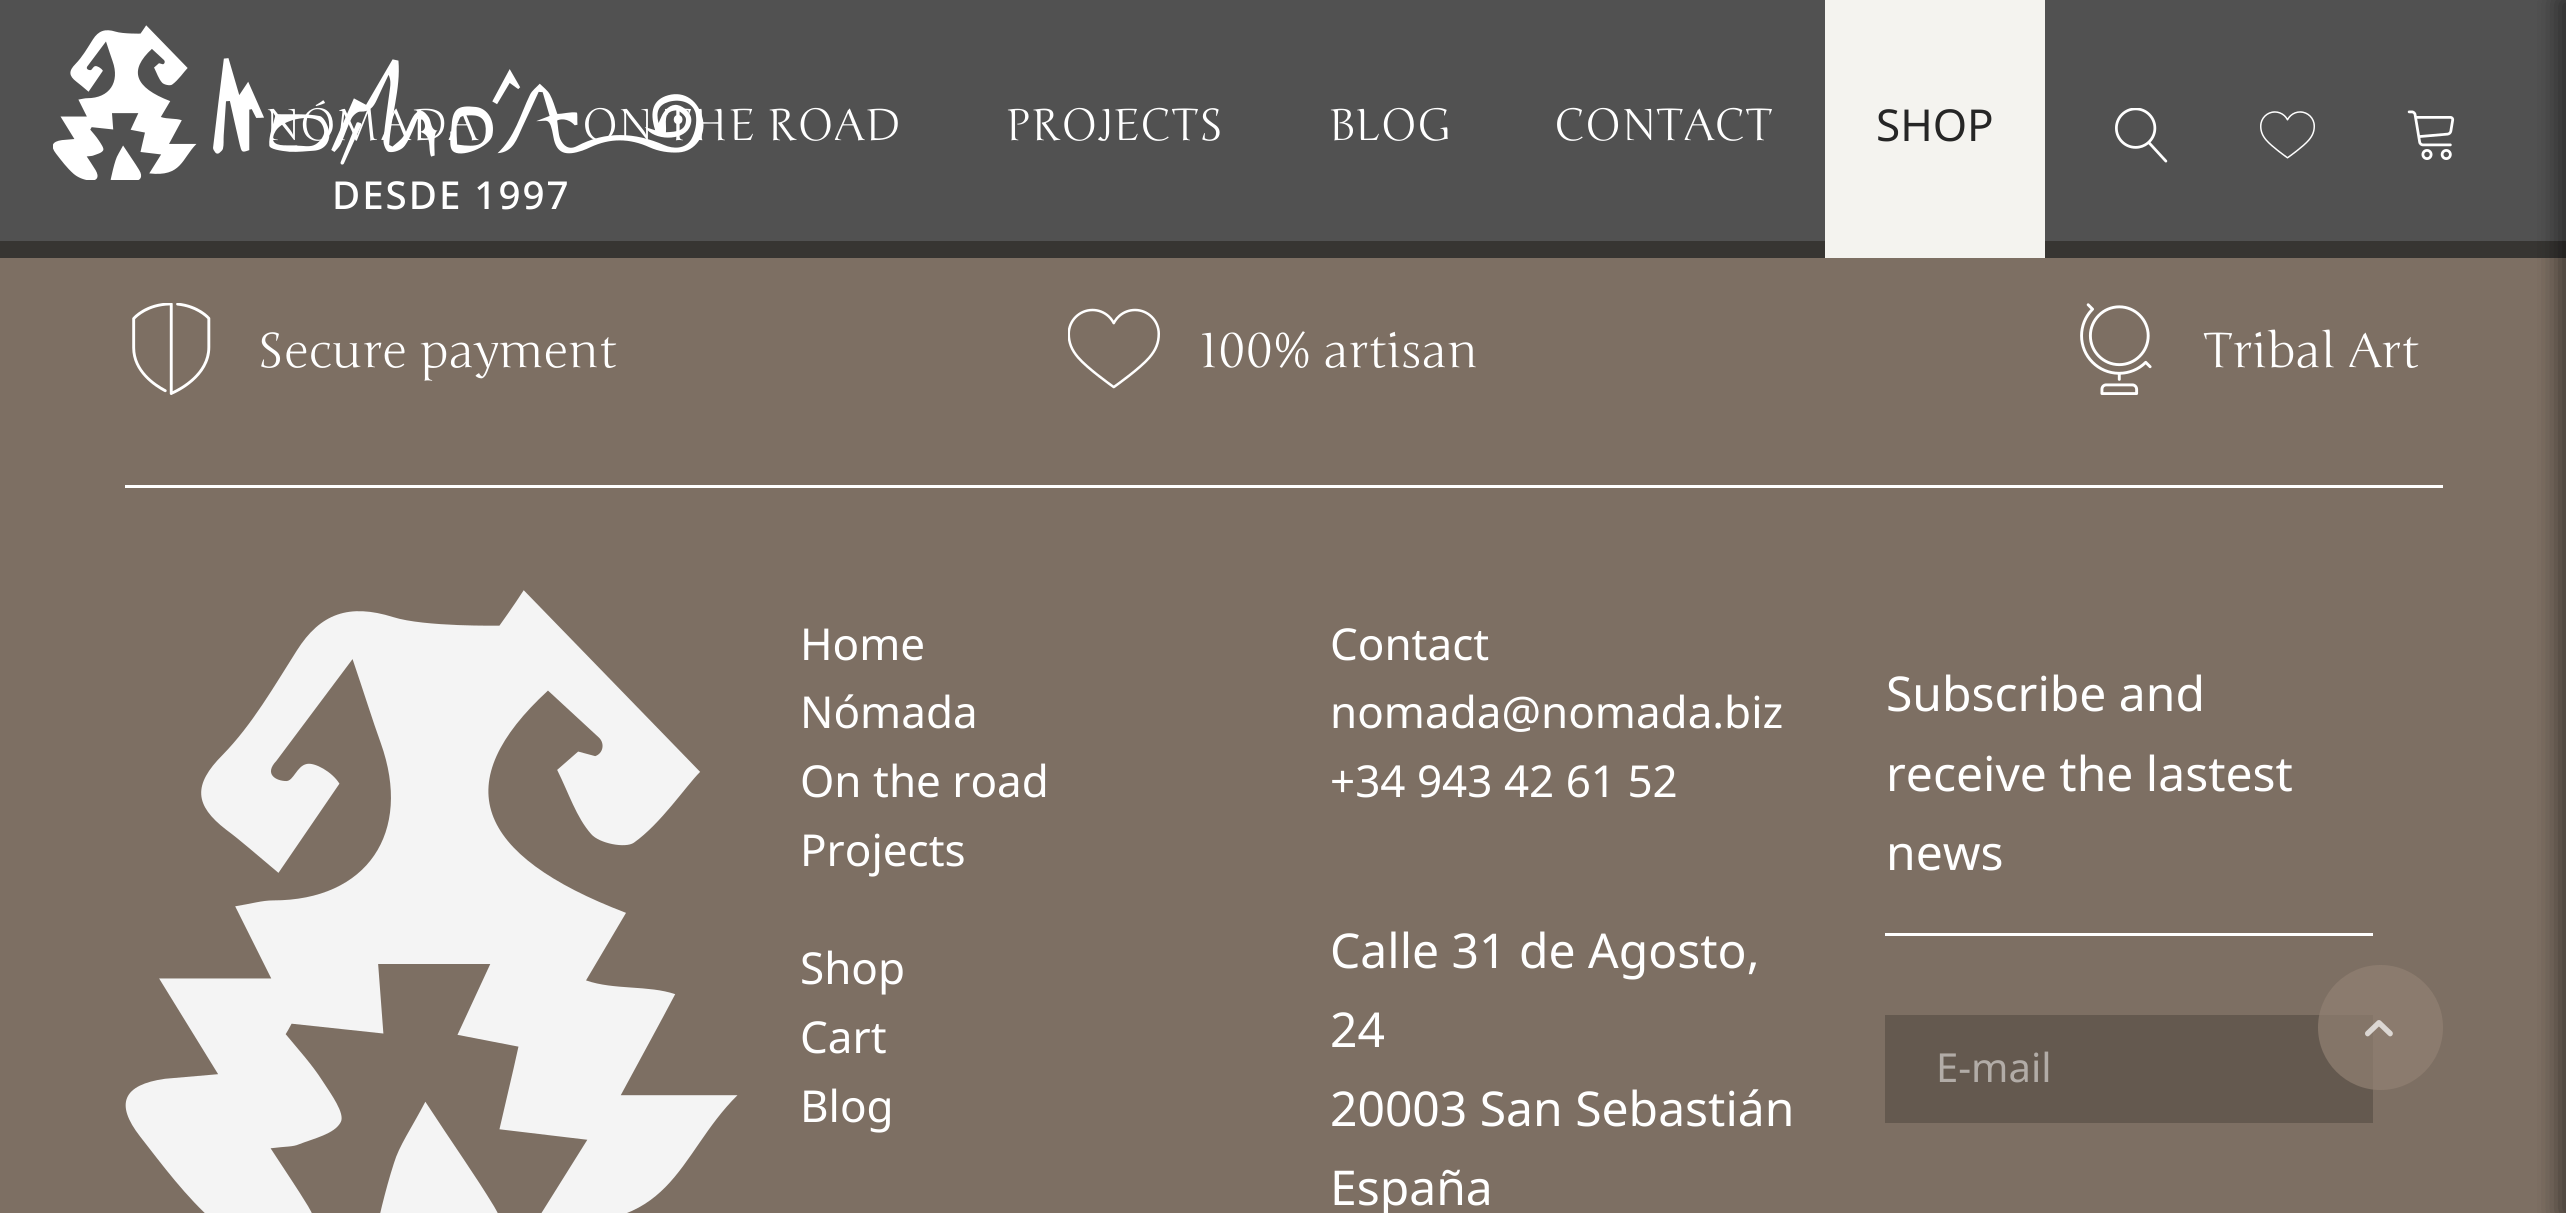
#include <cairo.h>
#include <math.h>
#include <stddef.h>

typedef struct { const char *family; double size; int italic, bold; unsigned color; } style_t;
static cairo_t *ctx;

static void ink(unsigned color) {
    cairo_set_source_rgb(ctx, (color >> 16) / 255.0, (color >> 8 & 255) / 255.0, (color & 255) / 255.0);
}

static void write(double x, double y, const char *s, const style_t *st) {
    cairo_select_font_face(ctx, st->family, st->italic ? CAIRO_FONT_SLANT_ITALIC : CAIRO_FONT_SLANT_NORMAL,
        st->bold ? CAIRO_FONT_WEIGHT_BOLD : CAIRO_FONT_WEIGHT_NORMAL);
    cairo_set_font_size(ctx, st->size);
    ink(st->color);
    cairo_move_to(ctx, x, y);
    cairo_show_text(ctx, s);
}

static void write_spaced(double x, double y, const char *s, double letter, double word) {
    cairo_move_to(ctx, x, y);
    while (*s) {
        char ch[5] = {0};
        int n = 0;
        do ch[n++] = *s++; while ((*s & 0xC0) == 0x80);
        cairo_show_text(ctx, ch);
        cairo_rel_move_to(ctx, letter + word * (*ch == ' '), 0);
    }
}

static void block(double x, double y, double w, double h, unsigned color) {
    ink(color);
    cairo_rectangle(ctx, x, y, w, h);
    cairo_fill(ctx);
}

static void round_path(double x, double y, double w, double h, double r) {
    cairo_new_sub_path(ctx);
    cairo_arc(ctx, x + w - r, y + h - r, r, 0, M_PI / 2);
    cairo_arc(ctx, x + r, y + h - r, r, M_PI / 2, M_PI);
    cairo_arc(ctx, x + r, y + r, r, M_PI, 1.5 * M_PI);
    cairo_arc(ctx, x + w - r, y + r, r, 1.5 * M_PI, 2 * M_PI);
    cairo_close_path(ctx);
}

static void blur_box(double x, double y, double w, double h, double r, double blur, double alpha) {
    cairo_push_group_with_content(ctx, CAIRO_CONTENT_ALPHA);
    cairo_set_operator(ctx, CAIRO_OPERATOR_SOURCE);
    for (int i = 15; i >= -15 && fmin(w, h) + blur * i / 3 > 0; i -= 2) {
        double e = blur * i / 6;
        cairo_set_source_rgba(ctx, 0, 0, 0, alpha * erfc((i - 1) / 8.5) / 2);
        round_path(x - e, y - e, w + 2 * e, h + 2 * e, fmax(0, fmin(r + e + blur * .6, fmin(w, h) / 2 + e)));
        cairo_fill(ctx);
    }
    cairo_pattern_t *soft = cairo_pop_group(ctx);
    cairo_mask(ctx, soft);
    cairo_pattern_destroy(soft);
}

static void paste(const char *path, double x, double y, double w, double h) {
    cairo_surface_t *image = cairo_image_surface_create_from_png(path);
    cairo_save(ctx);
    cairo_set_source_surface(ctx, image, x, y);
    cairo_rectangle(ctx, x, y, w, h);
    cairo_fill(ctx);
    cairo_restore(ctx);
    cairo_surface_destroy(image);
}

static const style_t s1 = {"Junge", 44, 0, 0, 0xffffff};
static const style_t s2 = {"Noto Sans", 44, 0, 0, 0x262626};
static const style_t s3 = {"Junge", 48, 0, 0, 0xffffff};
static const style_t s4 = {"Noto Sans", 44, 0, 0, 0xffffff};
static const style_t s5 = {"Noto Sans", 48, 0, 0, 0xffffff};
static const style_t s6 = {"Noto Sans", 40, 0, 0, 0xb2aca7};

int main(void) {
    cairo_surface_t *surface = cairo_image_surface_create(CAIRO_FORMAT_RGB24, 2566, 1213);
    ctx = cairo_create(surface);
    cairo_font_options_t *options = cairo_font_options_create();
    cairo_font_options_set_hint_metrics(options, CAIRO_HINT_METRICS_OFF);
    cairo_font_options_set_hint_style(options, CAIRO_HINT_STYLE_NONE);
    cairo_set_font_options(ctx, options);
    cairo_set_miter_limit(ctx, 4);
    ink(0x7d6f63);
    cairo_paint(ctx);
    block(0, 241, 2566, 17, 0x373532);
    block(0, 0, 2566, 241, 0x515151);
    ink(0x000000);
    blur_box(2560, 0, 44, 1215, 0, 12.5, 0.3);
    paste("pic4.png", 53, 25, 651, 155);
    write(265, 140, "NÓMADA", &s1);
    write(582, 140, "ON THE ROAD", &s1);
    write(1005, 140, "PROJECTS", &s1);
    write(1328, 140, "BLOG", &s1);
    write(1554, 140, "CONTACT", &s1);
    block(1825, 0, 220, 258, 0xf4f3ef);
    write(1876, 141, "SHOP", &s2);
    paste("pic1.png", 2115, 108, 53, 55);
    paste("pic2.png", 2260, 111, 55, 48);
    paste("pic3.png", 2407, 110, 48, 50);
    cairo_select_font_face(ctx, "Noto Sans Medium", CAIRO_FONT_SLANT_NORMAL, CAIRO_FONT_WEIGHT_NORMAL);
    cairo_set_font_size(ctx, 38.5);
    ink(0xffffff);
    write_spaced(332, 209, "DESDE 1997", 2, 0);
    block(125, 485, 2318, 3, 0xffffff);
    paste("pic5.png", 132, 303, 79, 92);
    write(257, 367, "Secure payment", &s3);
    paste("pic6.png", 1068, 308, 92, 81);
    write(1199, 367, "100% artisan", &s3);
    paste("pic7.png", 2080, 303, 72, 92);
    write(2203, 367, "Tribal Art", &s3);
    paste("pic8.png", 125, 590, 613, 623);
    write(800, 660, "Home", &s4);
    write(800, 728, "Nómada", &s4);
    write(800, 797, "On the road", &s4);
    write(800, 866, "Projects", &s4);
    write(800, 984, "Shop", &s4);
    write(800, 1053, "Cart", &s4);
    write(800, 1122, "Blog", &s4);
    write(1330, 660, "Contact", &s4);
    write(1330, 728, "nomada@nomada.biz", &s4);
    write(1330, 797, "+34 943 42 61 52", &s4);
    write(1330, 968, "Calle 31 de Agosto,", &s5);
    write(1330, 1047, "24", &s5);
    write(1330, 1126, "20003 San Sebastián", &s5);
    write(1330, 1205, "España", &s5);
    write(1886, 711, "Subscribe and", &s5);
    write(1886, 791, "receive the lastest", &s5);
    write(1886, 870, "news", &s5);
    block(1885, 933, 488, 3, 0xffffff);
    block(1885, 1015, 488, 108, 0x64594f);
    write(1936, 1082, "E-mail", &s6);
    ink(0x000000);
    blur_box(2560, 0, 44, 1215, 0, 12.5, 0.3);
    cairo_set_source_rgba(ctx, 0.573, 0.506, 0.447, 0.7);
    cairo_arc(ctx, 2380.5, 1027.5, 62.5, 0, 2 * M_PI);
    cairo_fill(ctx);
    paste("pic9.png", 2365, 1020, 28, 17);
    cairo_surface_write_to_png(surface, "screenshot.png");
    cairo_font_options_destroy(options);
    cairo_destroy(ctx);
    cairo_surface_destroy(surface);
    return 0;
}
